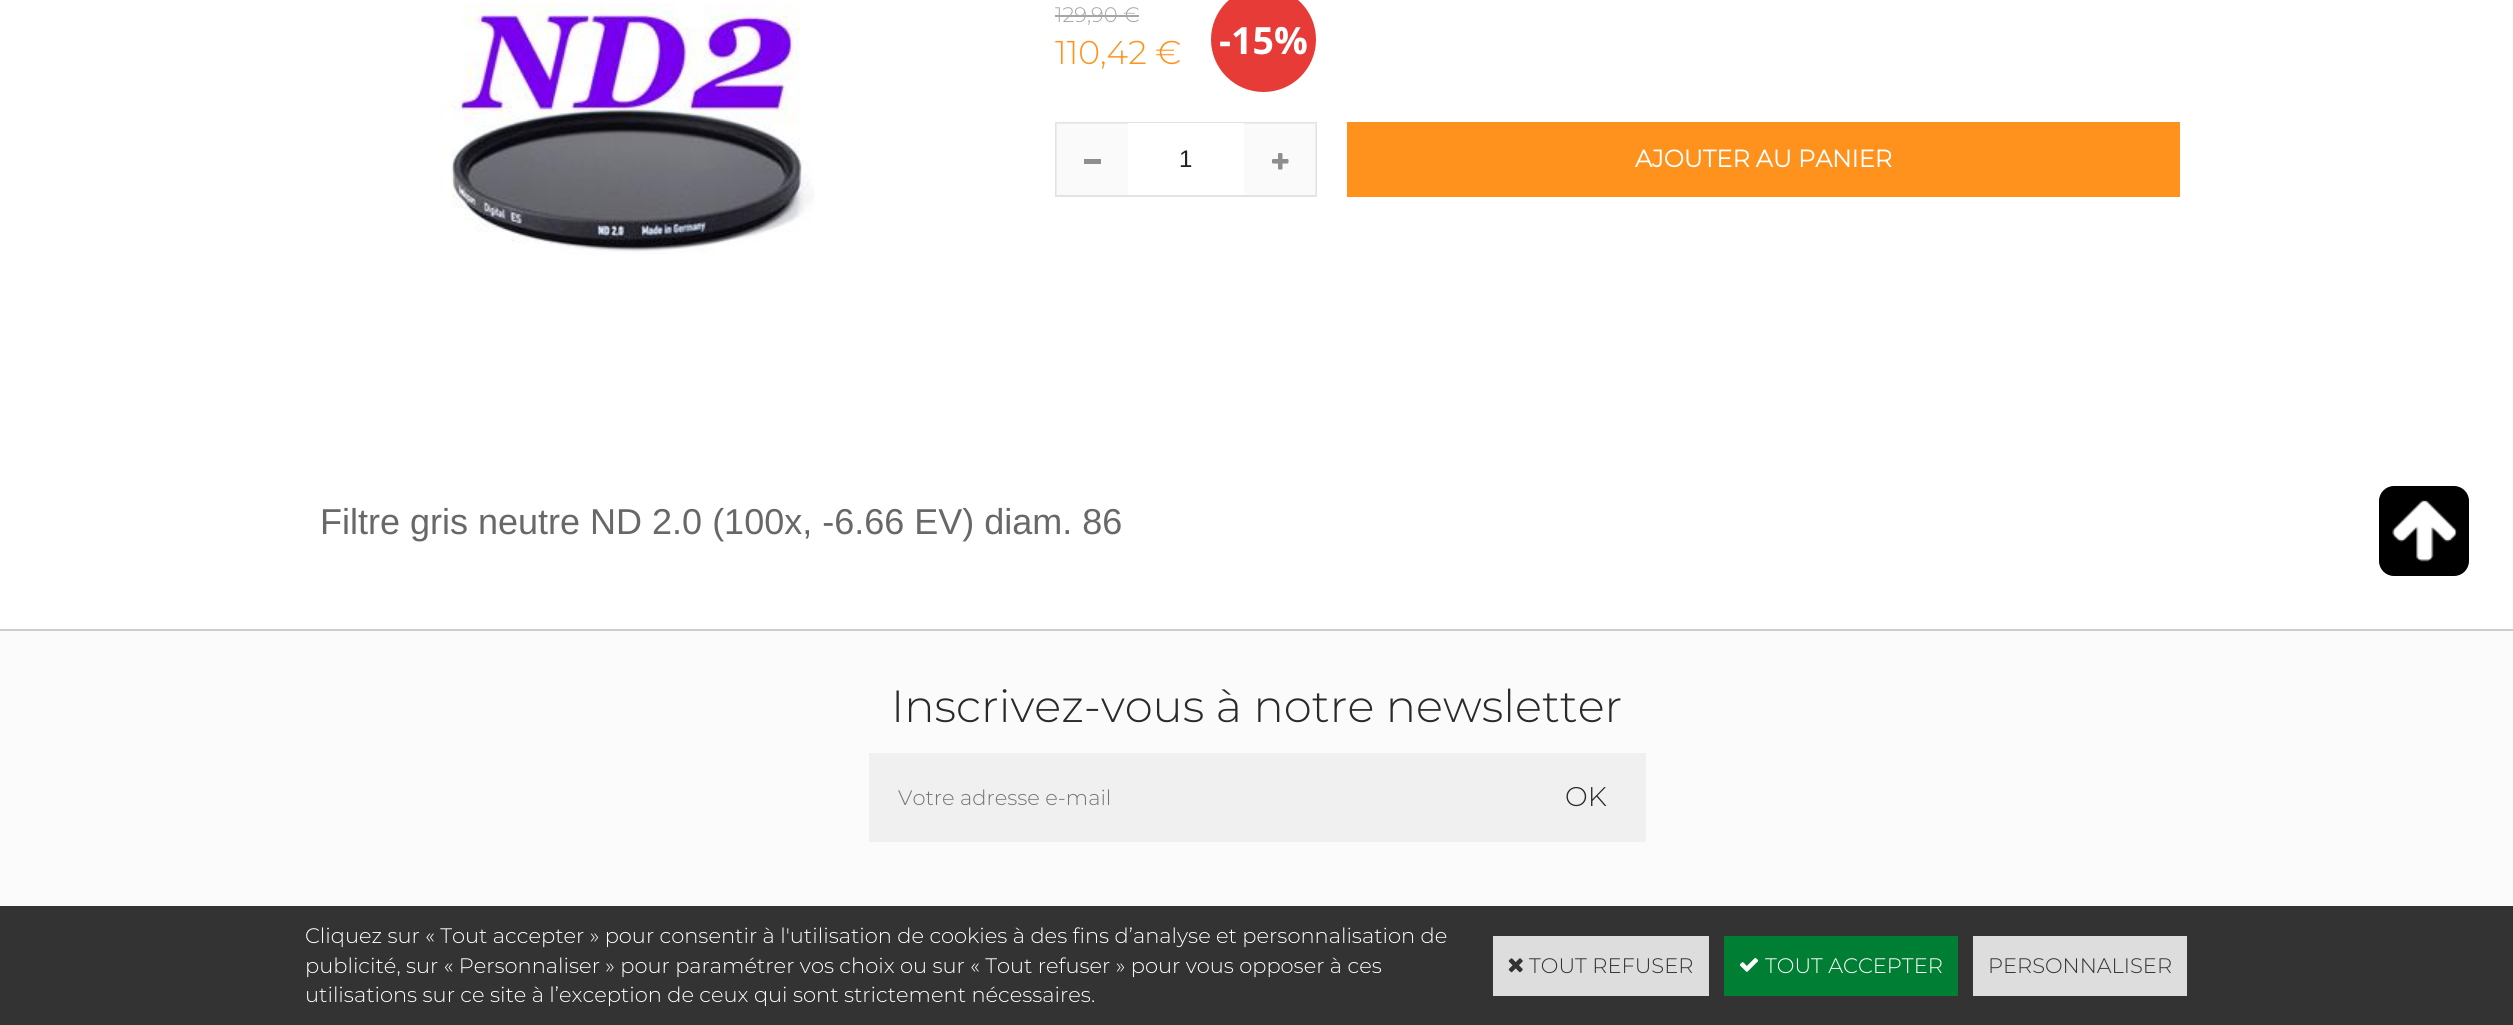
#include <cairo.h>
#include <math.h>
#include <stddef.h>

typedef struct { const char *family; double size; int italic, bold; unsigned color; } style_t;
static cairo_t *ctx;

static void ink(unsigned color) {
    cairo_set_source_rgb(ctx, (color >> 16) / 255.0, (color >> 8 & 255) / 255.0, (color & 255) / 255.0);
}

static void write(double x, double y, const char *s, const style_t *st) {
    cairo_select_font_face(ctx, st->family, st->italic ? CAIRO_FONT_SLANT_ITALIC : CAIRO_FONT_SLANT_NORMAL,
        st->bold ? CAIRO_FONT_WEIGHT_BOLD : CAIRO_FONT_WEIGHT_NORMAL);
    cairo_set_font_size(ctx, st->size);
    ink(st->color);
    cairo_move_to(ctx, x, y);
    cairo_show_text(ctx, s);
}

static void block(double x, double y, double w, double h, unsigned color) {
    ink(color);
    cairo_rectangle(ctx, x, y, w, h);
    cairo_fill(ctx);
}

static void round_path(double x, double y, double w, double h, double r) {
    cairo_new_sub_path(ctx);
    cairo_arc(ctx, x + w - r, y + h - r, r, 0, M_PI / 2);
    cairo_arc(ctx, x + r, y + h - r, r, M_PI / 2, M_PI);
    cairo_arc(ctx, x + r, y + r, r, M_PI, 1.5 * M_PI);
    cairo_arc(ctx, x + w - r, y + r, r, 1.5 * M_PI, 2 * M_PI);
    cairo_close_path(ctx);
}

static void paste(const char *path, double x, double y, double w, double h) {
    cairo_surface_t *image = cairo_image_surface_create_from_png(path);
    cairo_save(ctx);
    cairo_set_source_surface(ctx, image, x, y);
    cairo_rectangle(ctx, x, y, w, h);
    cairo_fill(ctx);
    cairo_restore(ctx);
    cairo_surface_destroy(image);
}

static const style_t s1 = {"Montserrat Thin", 21, 0, 0, 0xa6a6a6};
static const style_t s2 = {"Montserrat Thin", 33, 0, 0, 0xff921d};
static const style_t s3 = {"Open Sans", 37.5, 0, 1, 0xffffff};
static const style_t s4 = {"Liberation Sans", 24, 0, 0, 0x212121};
static const style_t s5 = {"Montserrat", 24, 0, 1, 0xffffff};
static const style_t s6 = {"Liberation Sans", 36, 0, 0, 0x686868};
static const style_t s7 = {"Montserrat Thin", 45, 0, 0, 0x2a2a2a};
static const style_t s8 = {"Montserrat Thin", 21, 0, 0, 0x757575};
static const style_t s9 = {"Montserrat Thin", 27, 0, 0, 0x2a2a2a};
static const style_t s10 = {"Montserrat Thin", 21, 0, 0, 0xffffff};
static const style_t s11 = {"Montserrat Thin", 21, 0, 0, 0x333333};

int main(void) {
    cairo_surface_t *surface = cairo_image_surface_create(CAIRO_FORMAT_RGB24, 2513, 1025);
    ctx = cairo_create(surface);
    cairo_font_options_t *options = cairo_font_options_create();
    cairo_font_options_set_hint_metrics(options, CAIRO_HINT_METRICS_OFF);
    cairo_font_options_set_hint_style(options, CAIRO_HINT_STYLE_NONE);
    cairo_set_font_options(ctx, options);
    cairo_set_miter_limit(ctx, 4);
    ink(0xffffff);
    cairo_paint(ctx);
    paste("pic1.png", 440, 2, 375, 252);
    write(1055, 22, "129,90 €", &s1);
    block(1055, 15, 84, 2, 0xa6a6a6);
    write(1055, 64, "110,42 €", &s2);
    ink(0xe73b38);
    cairo_new_path(ctx);
    cairo_arc(ctx, 1263.5, 39.5, 52.5, 0, 2 * M_PI);
    cairo_fill(ctx);
    write(1219, 54, "-15%", &s3);
    cairo_rectangle(ctx, 1056, 123, 260, 73);
    ink(0xe3e3e3);
    cairo_stroke(ctx);
    cairo_set_source_rgba(ctx, 0.961, 0.961, 0.961, 0.5);
    cairo_rectangle(ctx, 1056, 123, 72, 72);
    cairo_fill(ctx);
    block(1084, 159, 17, 5, 0x8e8e8e);
    block(1128, 123, 116, 1, 0xffffff);
    write(1179, 167, "1", &s4);
    cairo_set_source_rgba(ctx, 0.961, 0.961, 0.961, 0.5);
    cairo_rectangle(ctx, 1244, 123, 72, 72);
    cairo_fill(ctx);
    paste("pic2.png", 1272, 153, 17, 17);
    block(1347, 122, 833, 75, 0xff921d);
    write(1635, 167, "AJOUTER AU PANIER", &s5);
    write(320, 534, "Filtre gris neutre ND 2.0 (100x, -6.66 EV) diam. 86", &s6);
    ink(0x000000);
    round_path(2379, 486, 90, 90, 15);
    cairo_fill(ctx);
    paste("pic3.png", 2392, 500, 65, 62);
    block(0, 631, 2513, 275, 0xfbfbfb);
    block(0, 629, 2513, 2, 0xcdcdcd);
    write(891, 722, "Inscrivez-vous à notre newsletter", &s7);
    block(869, 753, 777, 89, 0xf0f0f0);
    write(898, 805, "Votre adresse e-mail", &s8);
    write(1565, 806, "OK", &s9);
    block(0, 906, 2513, 119, 0x333333);
    write(305, 943, "Cliquez sur « Tout accepter » pour consentir à l'utilisation de cookies à des fins d’analyse et personnalisation de", &s10);
    write(305, 973, "publicité, sur « Personnaliser » pour paramétrer vos choix ou sur « Tout refuser » pour vous opposer à ces", &s10);
    write(305, 1002, "utilisations sur ce site à l’exception de ceux qui sont strictement nécessaires.", &s10);
    block(1493, 936, 216, 60, 0xdddddd);
    paste("pic4.png", 1508, 958, 15, 15);
    write(1529, 973, "TOUT REFUSER", &s11);
    block(1724, 936, 234, 60, 0x007e33);
    paste("pic5.png", 1739, 957, 20, 15);
    write(1765, 973, "TOUT ACCEPTER", &s10);
    block(1973, 936, 214, 60, 0xdddddd);
    write(1988, 973, "PERSONNALISER", &s11);
    cairo_surface_write_to_png(surface, "screenshot.png");
    cairo_font_options_destroy(options);
    cairo_destroy(ctx);
    cairo_surface_destroy(surface);
    return 0;
}
